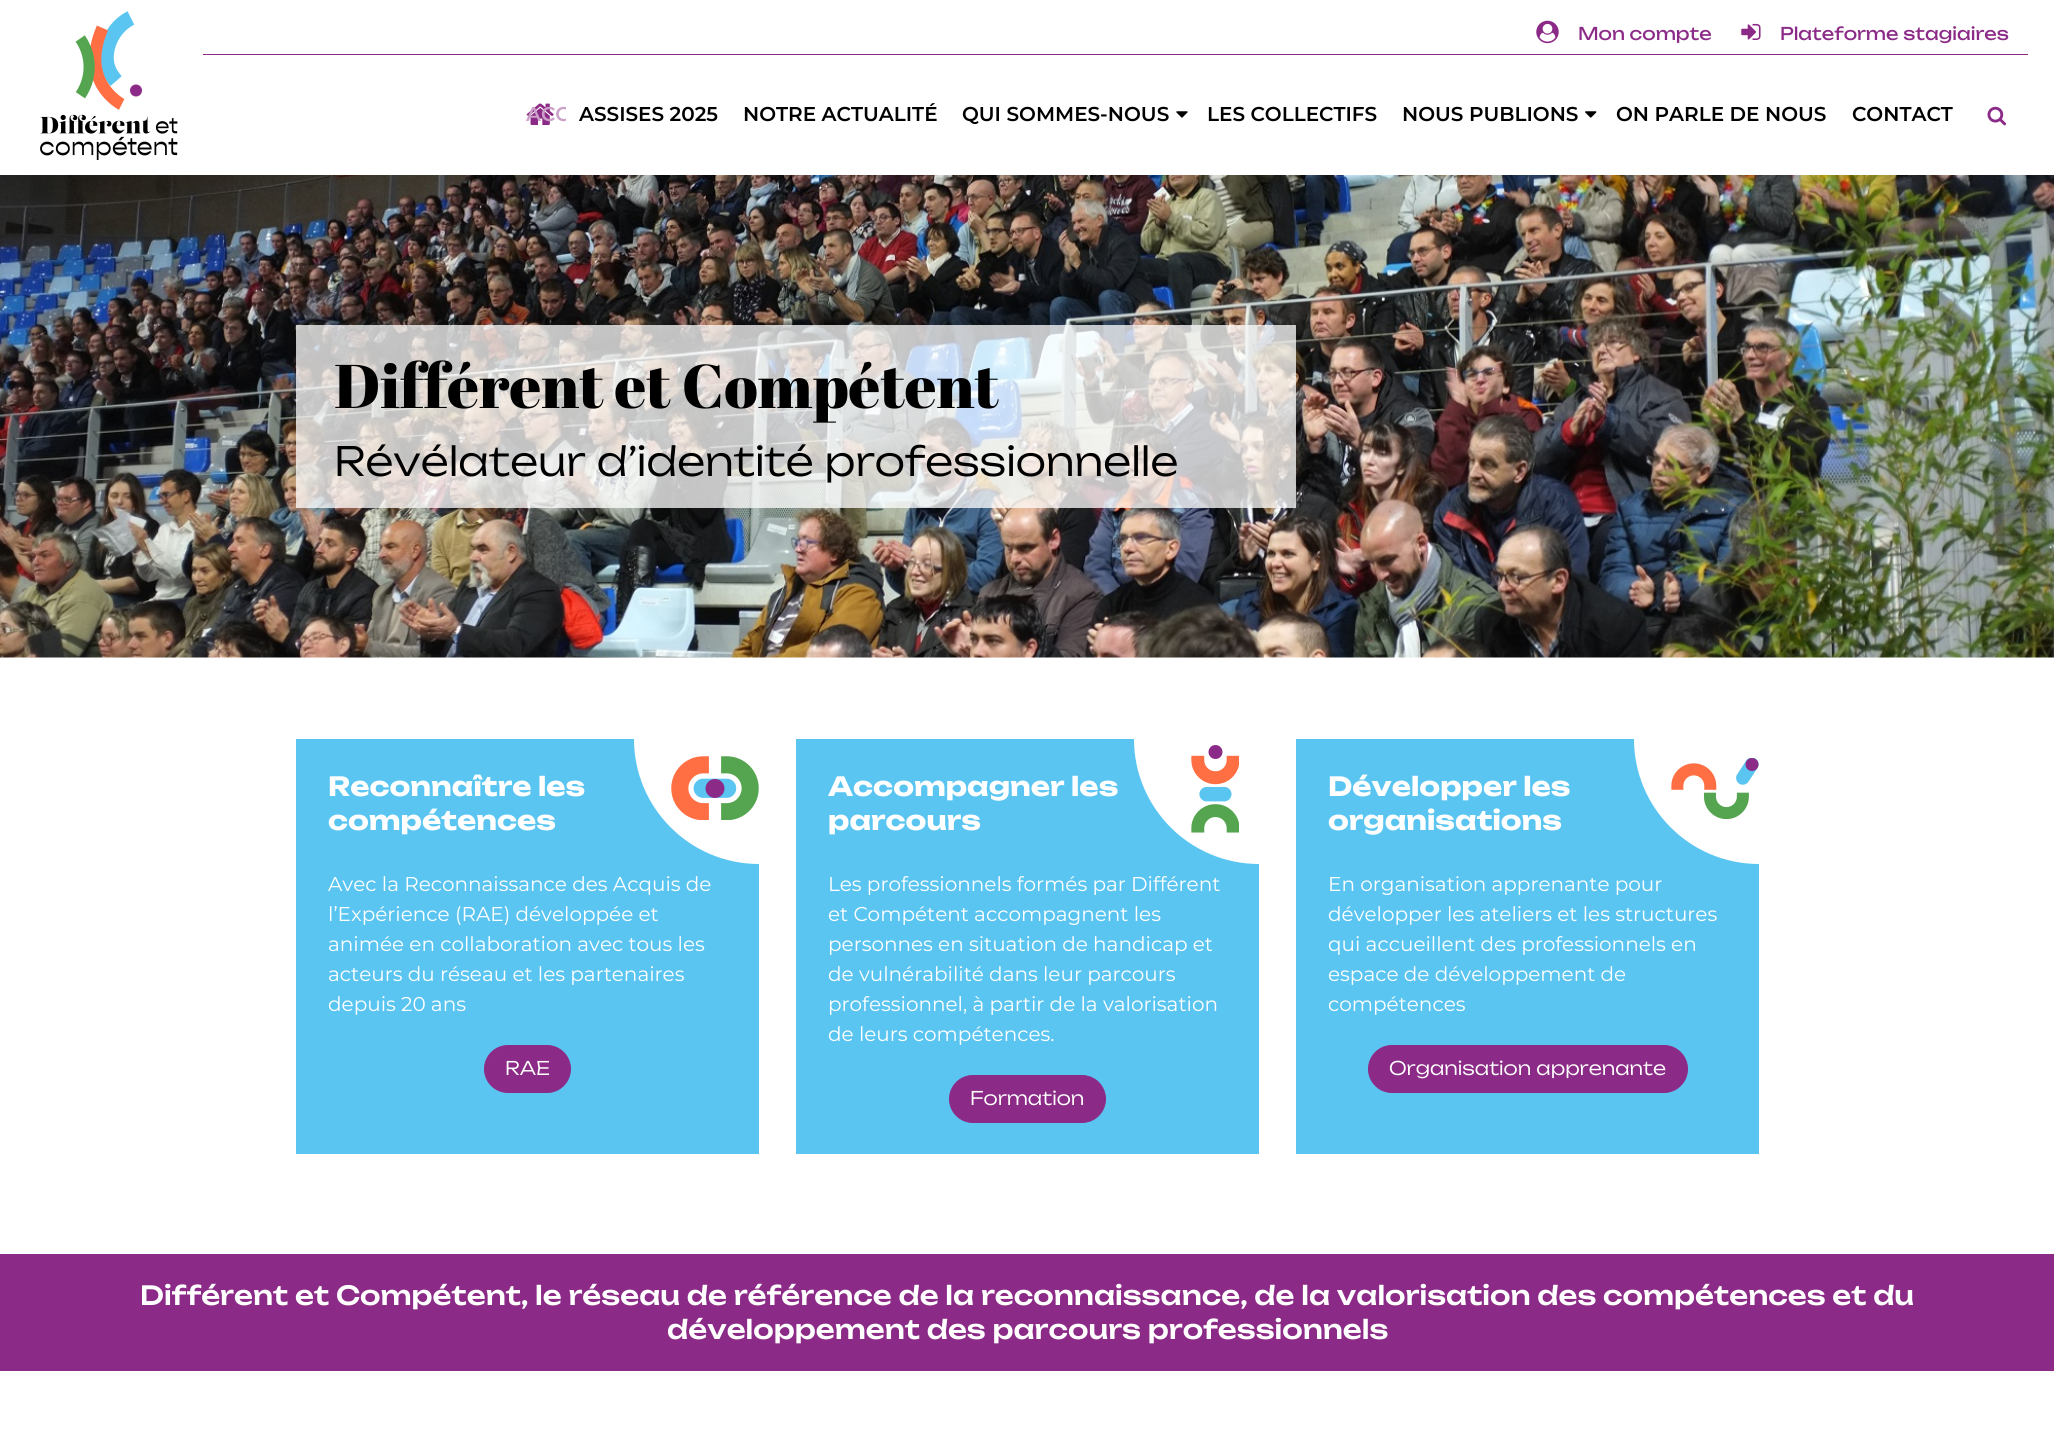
#include <cairo.h>
#include <math.h>
#include <stddef.h>

typedef struct { const char *family; double size; int italic, bold; unsigned color; } style_t;
static cairo_t *ctx;

static void ink(unsigned color) {
    cairo_set_source_rgb(ctx, (color >> 16) / 255.0, (color >> 8 & 255) / 255.0, (color & 255) / 255.0);
}

static void write(double x, double y, const char *s, const style_t *st) {
    cairo_select_font_face(ctx, st->family, st->italic ? CAIRO_FONT_SLANT_ITALIC : CAIRO_FONT_SLANT_NORMAL,
        st->bold ? CAIRO_FONT_WEIGHT_BOLD : CAIRO_FONT_WEIGHT_NORMAL);
    cairo_set_font_size(ctx, st->size);
    ink(st->color);
    cairo_move_to(ctx, x, y);
    cairo_show_text(ctx, s);
}

static void block(double x, double y, double w, double h, unsigned color) {
    ink(color);
    cairo_rectangle(ctx, x, y, w, h);
    cairo_fill(ctx);
}

static void round_path(double x, double y, double w, double h, double r) {
    cairo_new_sub_path(ctx);
    cairo_arc(ctx, x + w - r, y + h - r, r, 0, M_PI / 2);
    cairo_arc(ctx, x + r, y + h - r, r, M_PI / 2, M_PI);
    cairo_arc(ctx, x + r, y + r, r, M_PI, 1.5 * M_PI);
    cairo_arc(ctx, x + w - r, y + r, r, 1.5 * M_PI, 2 * M_PI);
    cairo_close_path(ctx);
}

static void paste(const char *path, double x, double y, double w, double h) {
    cairo_surface_t *image = cairo_image_surface_create_from_png(path);
    cairo_save(ctx);
    cairo_set_source_surface(ctx, image, x, y);
    cairo_rectangle(ctx, x, y, w, h);
    cairo_fill(ctx);
    cairo_restore(ctx);
    cairo_surface_destroy(image);
}

static const style_t s1 = {"Unbounded", 17.5, 0, 0, 0x8c2b87};
static const style_t s2 = {"Montserrat SemiBold", 20, 0, 0, 0xcba0c9};
static const style_t s3 = {"Montserrat SemiBold", 20, 0, 0, 0x000000};
static const style_t s4 = {"Abril Fatface", 61.6, 0, 0, 0x000000};
static const style_t s5 = {"Unbounded Light", 40, 0, 0, 0x000000};
static const style_t s6 = {"Unbounded", 26.25, 0, 1, 0xffffff};
static const style_t s7 = {"Montserrat", 20, 0, 0, 0xffffff};
static const style_t s8 = {"Unbounded Light", 18.75, 0, 0, 0xffffff};
static const style_t s9 = {"Unbounded Medium", 26.25, 0, 0, 0xffffff};

int main(void) {
    cairo_surface_t *surface = cairo_image_surface_create(CAIRO_FORMAT_RGB24, 2054, 1441);
    ctx = cairo_create(surface);
    cairo_font_options_t *options = cairo_font_options_create();
    cairo_font_options_set_hint_metrics(options, CAIRO_HINT_METRICS_OFF);
    cairo_font_options_set_hint_style(options, CAIRO_HINT_STYLE_NONE);
    cairo_set_font_options(ctx, options);
    cairo_set_miter_limit(ctx, 4);
    ink(0xffffff);
    cairo_paint(ctx);
    paste("pic1.png", 1536, 20, 23, 24);
    write(1578, 40, "Mon compte", &s1);
    paste("pic2.png", 1741, 23, 20, 17);
    write(1780, 40, "Plateforme stagiaires", &s1);
    block(203, 54, 1825, 1, 0x8c2b87);
    paste("pic3.png", 40, 11, 138, 149);
    paste("pic4.png", 526, 103, 28, 22);
    cairo_save(ctx);
    cairo_rectangle(ctx, 514, 55, 52, 118);
    cairo_clip(ctx);
    write(526, 121, "ACC", &s2);
    cairo_restore(ctx);
    write(579, 121, "ASSISES 2025", &s3);
    write(743, 121, "NOTRE ACTUALITÉ", &s3);
    write(962, 121, "QUI SOMMES-NOUS", &s3);
    paste("pic5.png", 1176, 111, 12, 7);
    write(1207, 121, "LES COLLECTIFS", &s3);
    write(1402, 121, "NOUS PUBLIONS", &s3);
    paste("pic6.png", 1585, 111, 12, 7);
    write(1616, 121, "ON PARLE DE NOUS", &s3);
    write(1852, 121, "CONTACT", &s3);
    paste("pic7.png", 1987, 106, 19, 20);
    paste("pic8.png", 0, 175, 2054, 483);
    cairo_set_source_rgba(ctx, 1, 1, 1, 0.75);
    cairo_rectangle(ctx, 296, 325, 1000, 183);
    cairo_fill(ctx);
    write(334, 408, "Différent et Compétent", &s4);
    write(334, 476, "Révélateur d’identité professionnelle", &s5);
    block(296, 739, 463, 415, 0x5bc5f2);
    ink(0xffffff);
    cairo_new_path(ctx);
    cairo_move_to(ctx, 634, 739);
    cairo_line_to(ctx, 759, 739);
    cairo_line_to(ctx, 759, 864);
    cairo_curve_to(ctx, 690, 864, 634, 808, 634, 739);
    cairo_close_path(ctx);
    cairo_fill(ctx);
    paste("pic9.png", 671, 756, 88, 64);
    write(328, 796, "Reconnaître les", &s6);
    write(328, 830, "compétences", &s6);
    write(328, 891, "Avec la Reconnaissance des Acquis de", &s7);
    write(328, 921, "l’Expérience (RAE) développée et", &s7);
    write(328, 951, "animée en collaboration avec tous les", &s7);
    write(328, 981, "acteurs du réseau et les partenaires", &s7);
    write(328, 1011, "depuis 20 ans", &s7);
    ink(0x8c2b87);
    round_path(484.5, 1045.5, 86, 47, 23.5);
    cairo_fill_preserve(ctx);
    cairo_set_line_width(ctx, 1);
    cairo_stroke(ctx);
    write(505, 1075, "RAE", &s8);
    block(796, 739, 463, 415, 0x5bc5f2);
    ink(0xffffff);
    cairo_new_path(ctx);
    cairo_move_to(ctx, 1134, 739);
    cairo_line_to(ctx, 1259, 739);
    cairo_line_to(ctx, 1259, 864);
    cairo_curve_to(ctx, 1190, 864, 1134, 808, 1134, 739);
    cairo_close_path(ctx);
    cairo_fill(ctx);
    paste("pic10.png", 1191, 745, 48, 88);
    write(828, 796, "Accompagner les", &s6);
    write(828, 830, "parcours", &s6);
    write(828, 891, "Les professionnels formés par Différent", &s7);
    write(828, 921, "et Compétent accompagnent les", &s7);
    write(828, 951, "personnes en situation de handicap et", &s7);
    write(828, 981, "de vulnérabilité dans leur parcours", &s7);
    write(828, 1011, "professionnel, à partir de la valorisation", &s7);
    write(828, 1041, "de leurs compétences.", &s7);
    ink(0x8c2b87);
    round_path(949.5, 1075.5, 156, 47, 23.5);
    cairo_fill_preserve(ctx);
    cairo_stroke(ctx);
    write(970, 1105, "Formation", &s8);
    block(1296, 739, 463, 415, 0x5bc5f2);
    ink(0xffffff);
    cairo_new_path(ctx);
    cairo_move_to(ctx, 1634, 739);
    cairo_line_to(ctx, 1759, 739);
    cairo_line_to(ctx, 1759, 864);
    cairo_curve_to(ctx, 1690, 864, 1634, 808, 1634, 739);
    cairo_close_path(ctx);
    cairo_fill(ctx);
    paste("pic11.png", 1671, 758, 88, 61);
    write(1328, 796, "Développer les", &s6);
    write(1328, 830, "organisations", &s6);
    write(1328, 891, "En organisation apprenante pour", &s7);
    write(1328, 921, "développer les ateliers et les structures", &s7);
    write(1328, 951, "qui accueillent des professionnels en", &s7);
    write(1328, 981, "espace de développement de", &s7);
    write(1328, 1011, "compétences", &s7);
    ink(0x8c2b87);
    round_path(1368.5, 1045.5, 319, 47, 23.5);
    cairo_fill_preserve(ctx);
    cairo_stroke(ctx);
    write(1389, 1075, "Organisation apprenante", &s8);
    block(0, 1254, 2054, 117, 0x8c2b87);
    write(140, 1305, "Différent et Compétent, le réseau de référence de la reconnaissance, de la valorisation des compétences et du", &s9);
    write(667, 1339, "développement des parcours professionnels", &s9);
    cairo_surface_write_to_png(surface, "screenshot.png");
    cairo_font_options_destroy(options);
    cairo_destroy(ctx);
    cairo_surface_destroy(surface);
    return 0;
}
